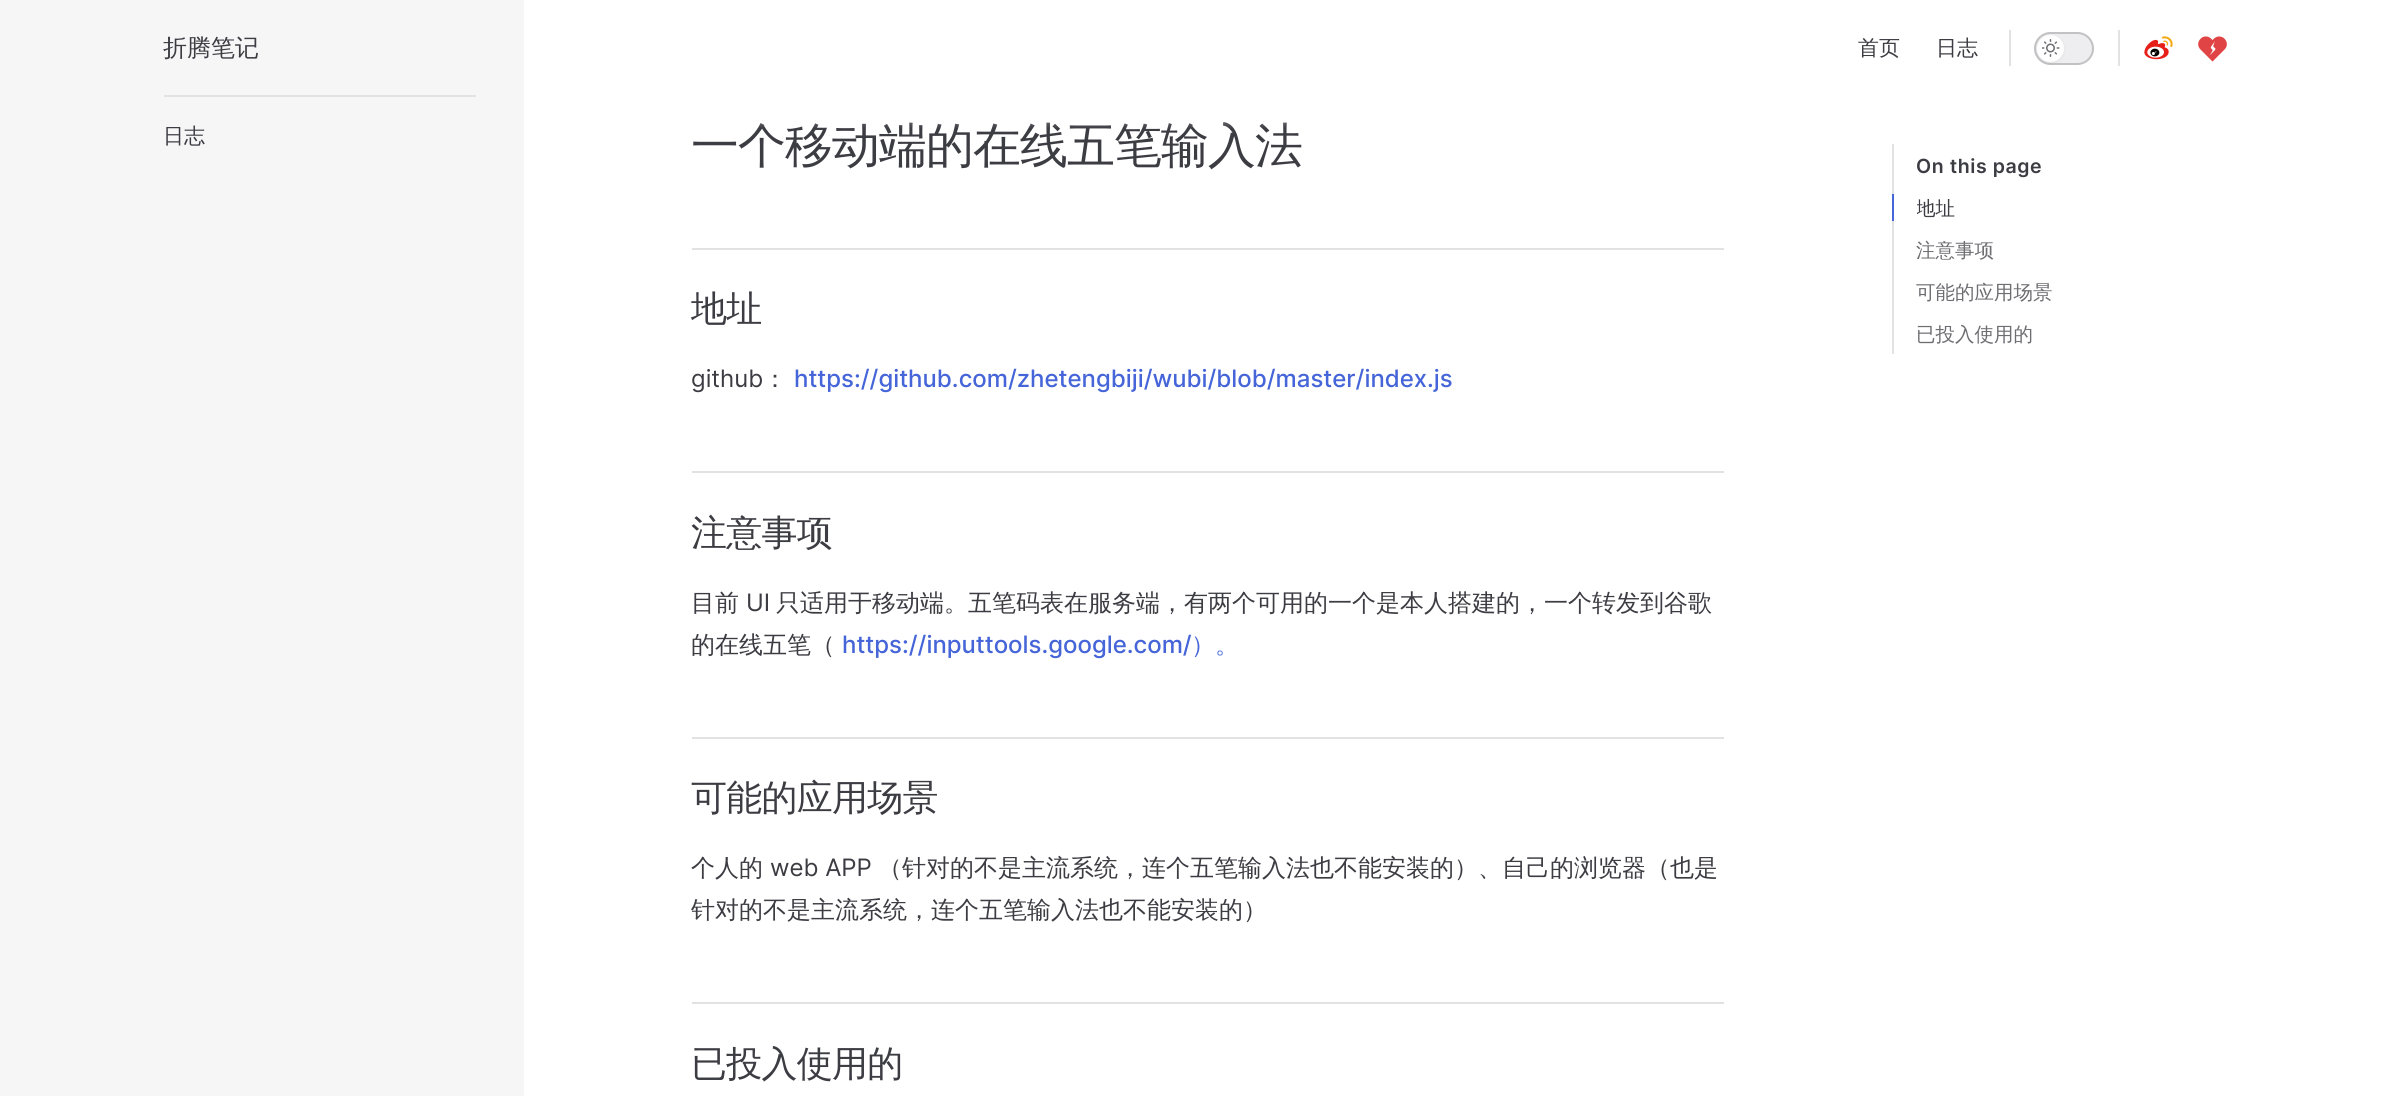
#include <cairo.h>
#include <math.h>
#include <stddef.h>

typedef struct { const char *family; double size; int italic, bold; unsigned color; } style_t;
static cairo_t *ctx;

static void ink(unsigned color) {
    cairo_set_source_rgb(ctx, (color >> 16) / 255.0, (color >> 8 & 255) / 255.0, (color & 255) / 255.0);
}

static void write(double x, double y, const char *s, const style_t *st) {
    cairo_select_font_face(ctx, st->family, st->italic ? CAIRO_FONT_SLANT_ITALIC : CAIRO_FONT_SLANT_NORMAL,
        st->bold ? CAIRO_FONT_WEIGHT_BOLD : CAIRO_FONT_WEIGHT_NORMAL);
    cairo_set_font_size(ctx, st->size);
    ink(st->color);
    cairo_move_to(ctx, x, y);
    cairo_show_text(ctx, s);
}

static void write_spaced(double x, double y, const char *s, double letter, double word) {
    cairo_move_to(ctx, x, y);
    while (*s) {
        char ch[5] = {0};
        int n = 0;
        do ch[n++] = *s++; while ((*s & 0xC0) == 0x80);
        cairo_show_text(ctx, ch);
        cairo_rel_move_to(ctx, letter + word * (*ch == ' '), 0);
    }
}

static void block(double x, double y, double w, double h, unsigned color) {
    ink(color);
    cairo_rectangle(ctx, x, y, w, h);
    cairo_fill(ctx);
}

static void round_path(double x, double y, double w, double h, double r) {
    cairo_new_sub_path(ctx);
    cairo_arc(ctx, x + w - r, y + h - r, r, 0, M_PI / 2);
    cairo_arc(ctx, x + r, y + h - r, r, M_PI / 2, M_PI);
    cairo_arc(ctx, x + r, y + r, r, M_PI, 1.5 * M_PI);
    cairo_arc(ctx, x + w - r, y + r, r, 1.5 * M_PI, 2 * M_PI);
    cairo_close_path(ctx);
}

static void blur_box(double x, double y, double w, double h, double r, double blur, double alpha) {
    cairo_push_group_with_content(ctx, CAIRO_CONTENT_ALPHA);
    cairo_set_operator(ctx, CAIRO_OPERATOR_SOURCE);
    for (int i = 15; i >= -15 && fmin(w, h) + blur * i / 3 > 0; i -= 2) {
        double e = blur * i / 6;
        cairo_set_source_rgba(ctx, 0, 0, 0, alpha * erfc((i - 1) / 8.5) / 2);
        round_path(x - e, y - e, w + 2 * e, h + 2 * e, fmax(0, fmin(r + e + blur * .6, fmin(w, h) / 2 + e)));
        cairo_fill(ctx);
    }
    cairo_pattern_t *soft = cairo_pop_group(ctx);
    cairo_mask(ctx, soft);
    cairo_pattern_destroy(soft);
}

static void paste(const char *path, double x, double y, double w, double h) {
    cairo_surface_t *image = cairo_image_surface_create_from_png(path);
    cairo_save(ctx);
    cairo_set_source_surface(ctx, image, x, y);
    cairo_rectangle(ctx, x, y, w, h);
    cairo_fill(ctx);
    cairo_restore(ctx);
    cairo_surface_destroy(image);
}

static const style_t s1 = {"WenQuanYi Zen Hei Medium", 24, 0, 0, 0x3c3c43};
static const style_t s2 = {"WenQuanYi Zen Hei Medium", 21, 0, 0, 0x3c3c43};
static const style_t s3 = {"Inter", 24, 0, 0, 0x3c3c43};
static const style_t s4 = {"Inter Medium", 24, 0, 0, 0x4565d8};
static const style_t s5 = {"WenQuanYi Zen Hei Medium", 24, 0, 0, 0x4565d8};
static const style_t s6 = {"WenQuanYi Zen Hei Medium", 19.5, 0, 0, 0x3c3c43};
static const style_t s7 = {"WenQuanYi Zen Hei Medium", 19.5, 0, 0, 0x6d6d72};

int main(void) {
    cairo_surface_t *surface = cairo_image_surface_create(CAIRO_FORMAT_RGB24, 2389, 1096);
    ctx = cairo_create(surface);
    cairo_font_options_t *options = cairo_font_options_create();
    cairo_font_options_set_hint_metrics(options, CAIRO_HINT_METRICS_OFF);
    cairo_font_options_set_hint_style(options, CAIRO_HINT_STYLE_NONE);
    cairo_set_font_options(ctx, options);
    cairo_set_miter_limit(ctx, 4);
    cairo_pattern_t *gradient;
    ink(0xffffff);
    cairo_paint(ctx);
    block(0, 0, 524, 1096, 0xf6f6f7);
    block(164, 95, 312, 2, 0xe2e2e3);
    write(163, 56, "折腾笔记", &s1);
    write(1858, 55, "首页", &s2);
    write(1936, 55, "日志", &s2);
    block(2009, 30, 2, 36, 0xe2e2e3);
    ink(0xeeeef0);
    round_path(2035, 33, 58, 31, 15.5);
    cairo_fill_preserve(ctx);
    ink(0xc2c2c4);
    cairo_stroke(ctx);
    ink(0x000000);
    blur_box(2037, 36, 27, 27, 13.5, 1.5, 0.06);
    ink(0xffffff);
    cairo_arc(ctx, 2050.5, 48.5, 13.5, 0, 2 * M_PI);
    cairo_fill(ctx);
    paste("pic1.png", 2042, 39, 18, 18);
    block(2118, 30, 2, 36, 0xe2e2e3);
    paste("pic2.png", 2144, 36, 29, 24);
    paste("pic3.png", 2198, 36, 29, 26);
    cairo_set_font_size(ctx, 48);
    ink(0x3c3c43);
    write_spaced(691, 162, "一个移动端的在线五笔输入法", -1, 0);
    gradient = cairo_pattern_create_linear(1457, 94, 1457, 143);
    cairo_pattern_add_color_stop_rgba(gradient, 0, 1, 1, 1, 1);
    cairo_pattern_add_color_stop_rgba(gradient, 0.7, 1, 1, 1, 0);
    cairo_set_source(ctx, gradient);
    cairo_pattern_destroy(gradient);
    cairo_rectangle(ctx, 758, 122, 529, 6);
    cairo_fill(ctx);
    write(163, 143, "日志", &s2);
    block(692, 248, 1032, 2, 0xe2e2e3);
    cairo_set_font_size(ctx, 36);
    ink(0x3c3c43);
    write_spaced(691, 321, "地址", -0.75, 0);
    write(691, 387, "github", &s3);
    write(763, 387, "：", &s1);
    write(794, 387, "https://github.com/zhetengbiji/wubi/blob/master/index.js", &s4);
    block(692, 471, 1032, 2, 0xe2e2e3);
    cairo_select_font_face(ctx, "WenQuanYi Zen Hei Medium", CAIRO_FONT_SLANT_NORMAL, CAIRO_FONT_WEIGHT_NORMAL);
    cairo_set_font_size(ctx, 36);
    ink(0x3c3c43);
    write_spaced(691, 545, "注意事项", -0.75, 0);
    write(691, 611, "目前", &s1);
    write(746, 611, "UI", &s3);
    write(776, 611, "只适用于移动端。五笔码表在服务端，有两个可用的一个是本人搭建的，一个转发到谷歌", &s1);
    write(691, 653, "的在线五笔（", &s1);
    write(842, 653, "https://inputtools.google.com/", &s4);
    write(1191, 653, "）。", &s5);
    block(692, 737, 1032, 2, 0xe2e2e3);
    cairo_set_font_size(ctx, 36);
    ink(0x3c3c43);
    write_spaced(691, 810, "可能的应用场景", -0.75, 0);
    write(691, 876, "个人的", &s1);
    write(770, 876, "web APP", &s3);
    write(878, 876, "（针对的不是主流系统，连个五笔输入法也不能安装的）、自己的浏览器（也是", &s1);
    write(691, 918, "针对的不是主流系统，连个五笔输入法也不能安装的）", &s1);
    block(692, 1002, 1032, 2, 0xe2e2e3);
    cairo_set_font_size(ctx, 36);
    ink(0x3c3c43);
    write_spaced(691, 1076, "已投入使用的", -0.75, 0);
    block(1892, 144, 2, 210, 0xe2e2e3);
    cairo_select_font_face(ctx, "Inter SemiBold", CAIRO_FONT_SLANT_NORMAL, CAIRO_FONT_WEIGHT_NORMAL);
    cairo_set_font_size(ctx, 19.5);
    ink(0x3c3c43);
    write_spaced(1916, 173, "On this page", 0.6, 0);
    block(1892, 194, 2, 27, 0x4565d8);
    cairo_save(ctx);
    cairo_rectangle(ctx, 1917, 186, 311, 42);
    cairo_clip(ctx);
    write(1916, 215, "地址", &s6);
    cairo_restore(ctx);
    write(1916, 257, "注意事项", &s7);
    write(1916, 299, "可能的应用场景", &s7);
    write(1916, 341, "已投入使用的", &s7);
    cairo_surface_write_to_png(surface, "screenshot.png");
    cairo_font_options_destroy(options);
    cairo_destroy(ctx);
    cairo_surface_destroy(surface);
    return 0;
}
